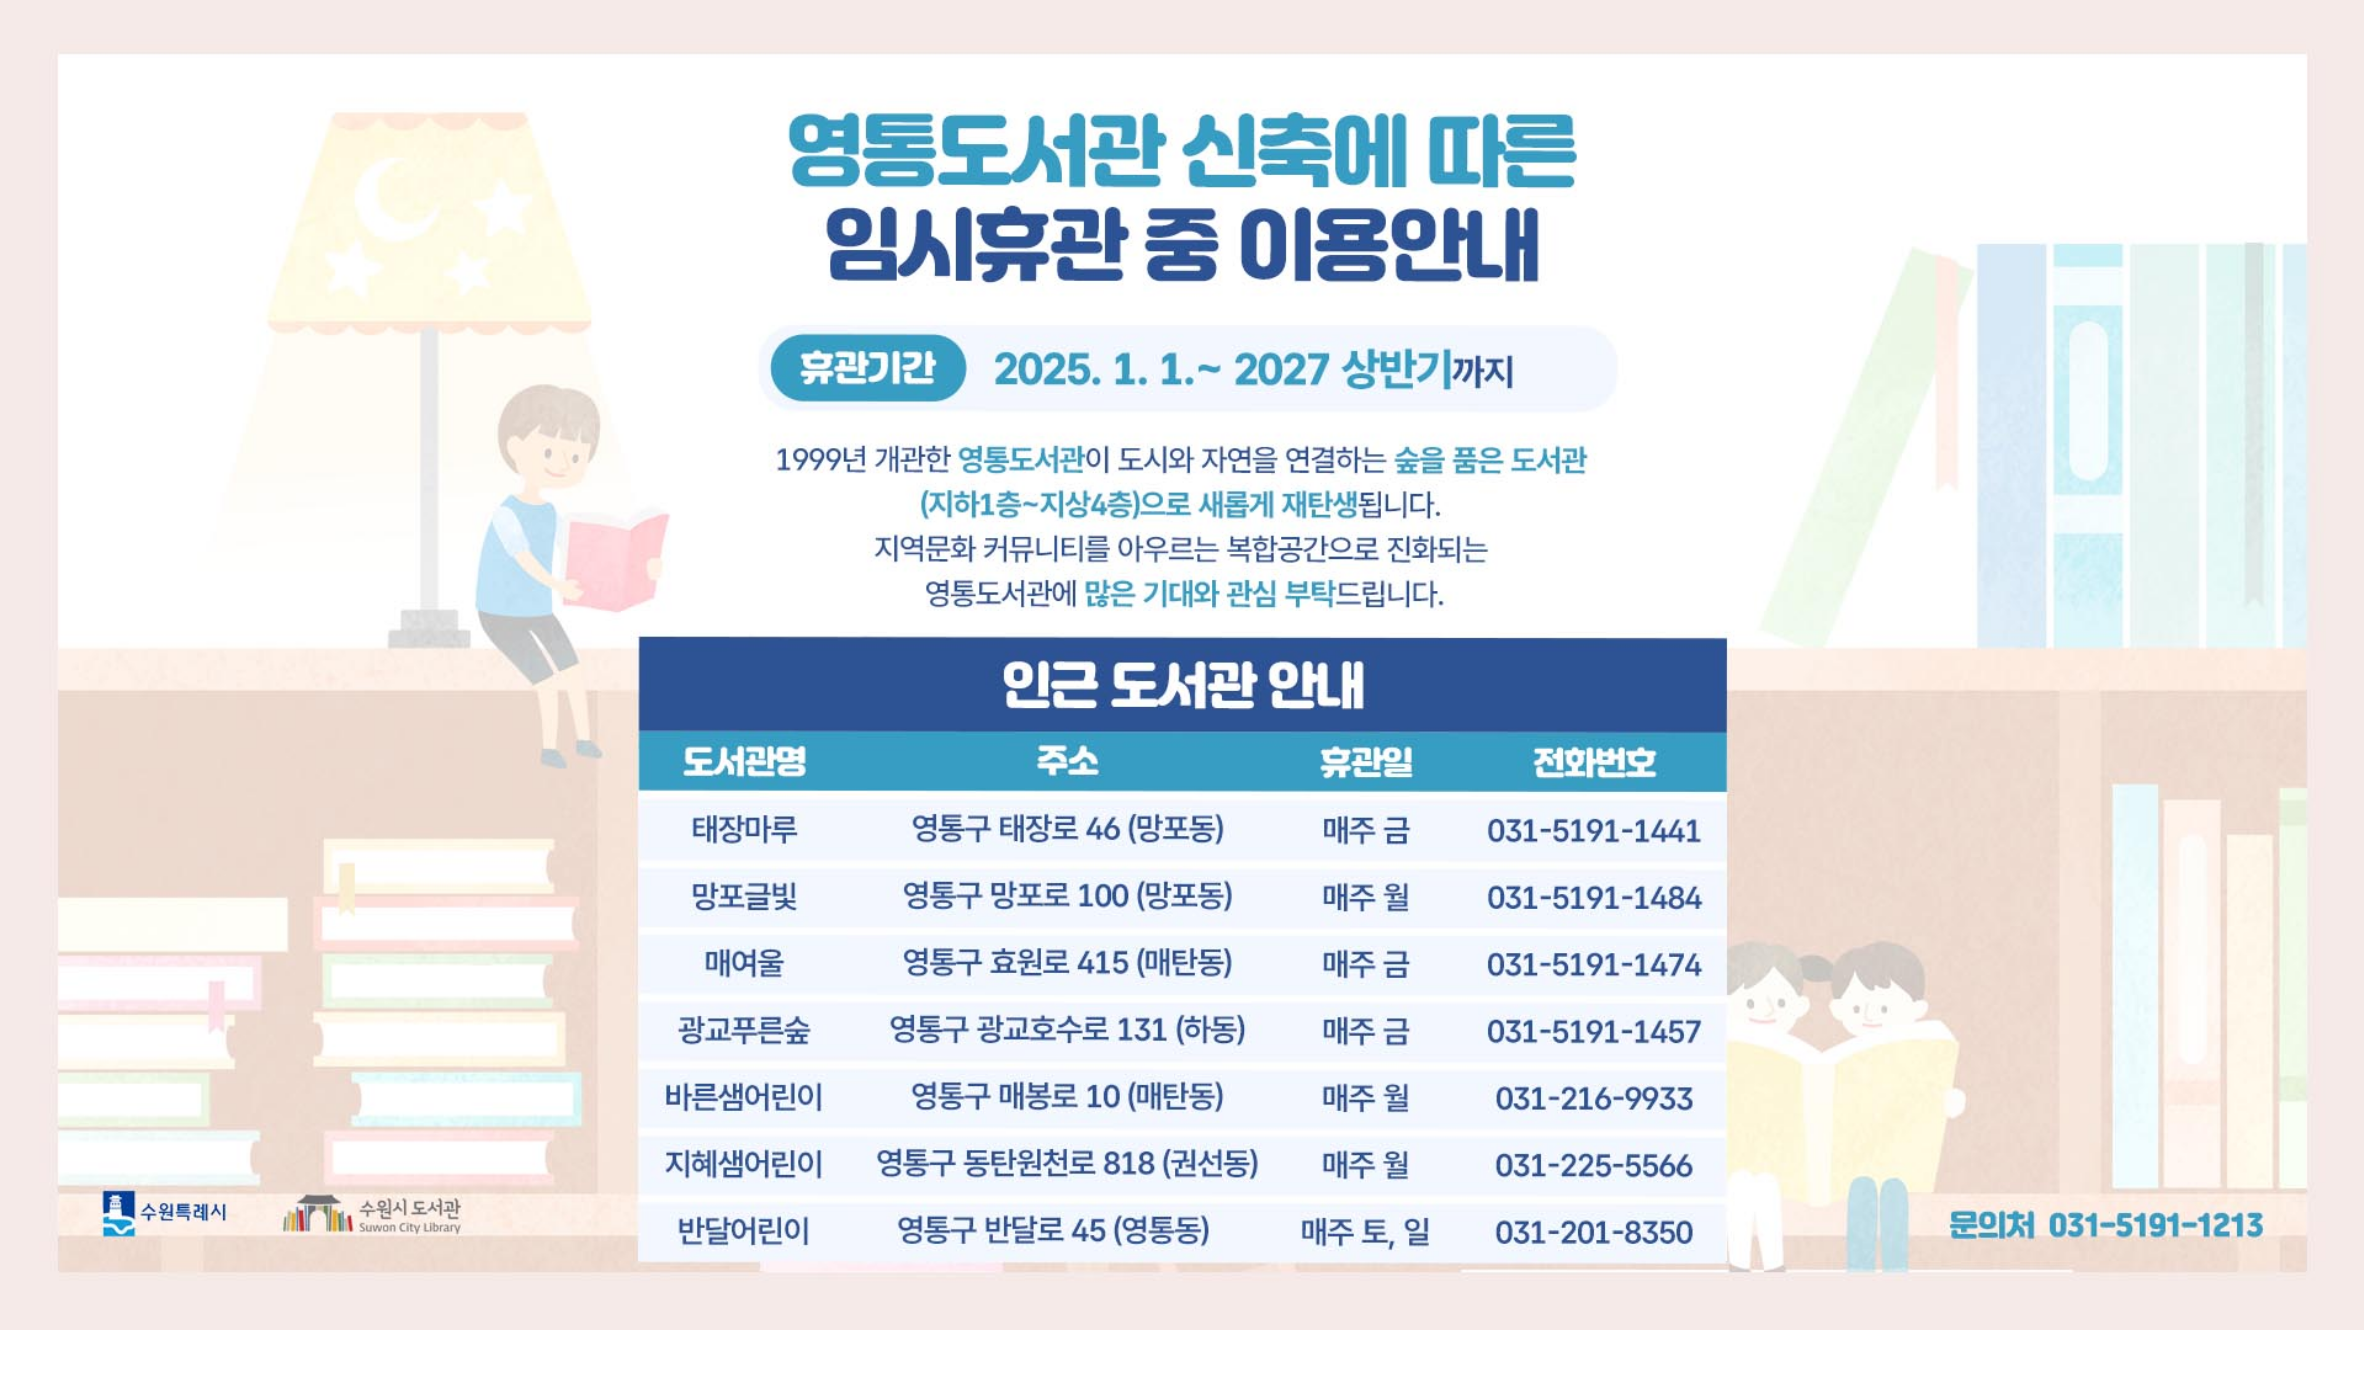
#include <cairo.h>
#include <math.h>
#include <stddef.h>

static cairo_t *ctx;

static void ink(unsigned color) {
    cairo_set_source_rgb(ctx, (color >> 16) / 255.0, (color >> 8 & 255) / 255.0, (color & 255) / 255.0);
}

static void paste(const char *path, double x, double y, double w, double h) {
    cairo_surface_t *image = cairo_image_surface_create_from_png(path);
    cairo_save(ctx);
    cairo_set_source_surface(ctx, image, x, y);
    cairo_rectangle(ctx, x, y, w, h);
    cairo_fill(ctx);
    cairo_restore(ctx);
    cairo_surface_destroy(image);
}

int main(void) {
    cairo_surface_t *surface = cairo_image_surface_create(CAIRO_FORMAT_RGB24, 2364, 1397);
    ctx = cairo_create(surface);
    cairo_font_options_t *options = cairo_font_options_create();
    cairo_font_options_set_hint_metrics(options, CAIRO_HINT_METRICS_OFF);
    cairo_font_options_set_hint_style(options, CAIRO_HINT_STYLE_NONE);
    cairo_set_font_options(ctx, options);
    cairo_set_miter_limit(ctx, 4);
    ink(0xffffff);
    cairo_paint(ctx);
    paste("pic1.png", 0, 0, 2364, 1330);
    cairo_surface_write_to_png(surface, "screenshot.png");
    cairo_font_options_destroy(options);
    cairo_destroy(ctx);
    cairo_surface_destroy(surface);
    return 0;
}
